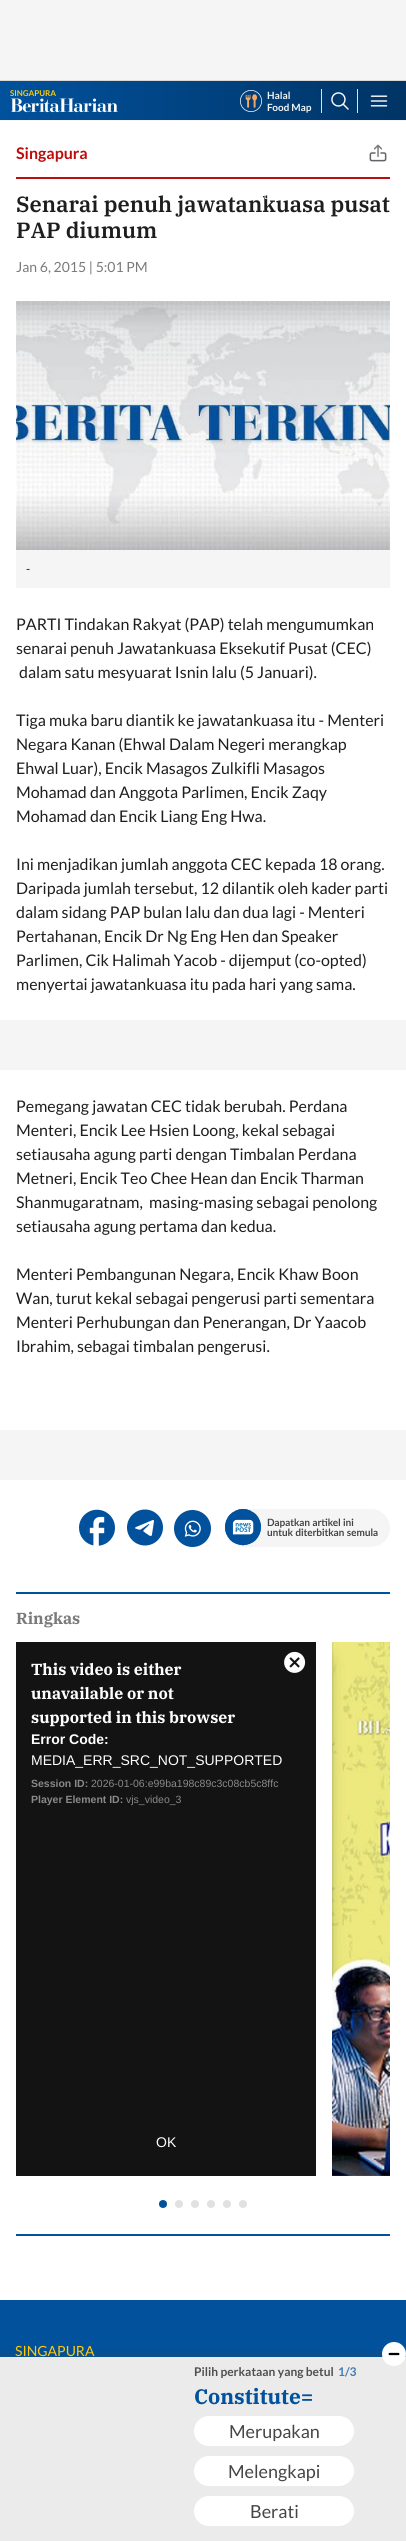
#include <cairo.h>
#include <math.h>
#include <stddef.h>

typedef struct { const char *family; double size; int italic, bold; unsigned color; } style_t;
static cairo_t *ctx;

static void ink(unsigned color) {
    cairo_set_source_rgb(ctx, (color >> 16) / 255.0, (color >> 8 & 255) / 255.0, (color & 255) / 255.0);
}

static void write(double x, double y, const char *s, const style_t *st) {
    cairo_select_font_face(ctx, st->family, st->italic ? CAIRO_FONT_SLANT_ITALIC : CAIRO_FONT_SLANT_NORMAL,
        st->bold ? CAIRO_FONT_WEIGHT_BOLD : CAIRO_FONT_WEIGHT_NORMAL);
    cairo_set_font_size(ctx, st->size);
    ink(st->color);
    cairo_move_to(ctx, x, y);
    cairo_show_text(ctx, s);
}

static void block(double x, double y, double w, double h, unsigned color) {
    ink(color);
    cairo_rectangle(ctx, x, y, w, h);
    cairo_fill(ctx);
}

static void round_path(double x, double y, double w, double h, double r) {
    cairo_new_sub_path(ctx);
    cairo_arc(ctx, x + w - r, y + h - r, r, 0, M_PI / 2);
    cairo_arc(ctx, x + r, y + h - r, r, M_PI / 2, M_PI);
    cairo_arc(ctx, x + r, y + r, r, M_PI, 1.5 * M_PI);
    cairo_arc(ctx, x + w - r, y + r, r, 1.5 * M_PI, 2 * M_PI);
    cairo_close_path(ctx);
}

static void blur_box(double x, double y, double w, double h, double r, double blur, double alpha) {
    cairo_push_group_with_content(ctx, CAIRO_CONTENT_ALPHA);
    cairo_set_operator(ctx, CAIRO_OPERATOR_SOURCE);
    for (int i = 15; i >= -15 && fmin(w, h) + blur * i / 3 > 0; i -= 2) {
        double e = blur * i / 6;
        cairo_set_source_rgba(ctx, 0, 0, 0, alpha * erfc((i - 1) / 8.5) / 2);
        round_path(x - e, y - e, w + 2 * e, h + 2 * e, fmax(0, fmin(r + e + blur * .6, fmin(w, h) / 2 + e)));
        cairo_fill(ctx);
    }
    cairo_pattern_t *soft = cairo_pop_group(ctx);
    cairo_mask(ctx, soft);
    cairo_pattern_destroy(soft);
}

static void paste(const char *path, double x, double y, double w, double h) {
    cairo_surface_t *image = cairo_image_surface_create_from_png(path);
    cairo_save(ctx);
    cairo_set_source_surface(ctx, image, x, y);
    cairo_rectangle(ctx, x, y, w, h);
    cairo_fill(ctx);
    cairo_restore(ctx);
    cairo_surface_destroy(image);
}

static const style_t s1 = {"Lato", 16, 0, 1, 0xbe0b0b};
static const style_t s2 = {"IBM Plex Serif SemiBold", 22, 0, 0, 0x1e1e1e};
static const style_t s3 = {"Lato", 10, 0, 0, 0xffffff};
static const style_t s4 = {"Lato", 14, 0, 0, 0x7a7a7a};
static const style_t s5 = {"Lato", 12, 0, 0, 0x1e1e1e};
static const style_t s6 = {"Lato", 16, 0, 0, 0x1e1e1e};
static const style_t s7 = {"IBM Plex Serif", 16, 0, 1, 0x7a7a7a};
static const style_t s8 = {"IBM Plex Serif", 16, 0, 1, 0xffffff};
static const style_t s9 = {"Liberation Sans", 14, 0, 1, 0xffffff};
static const style_t s10 = {"Liberation Sans", 14, 0, 0, 0xffffff};
static const style_t s11 = {"Liberation Sans", 10.5, 0, 1, 0x898989};
static const style_t s12 = {"Liberation Sans", 10.5, 0, 0, 0x898989};
static const style_t s13 = {"Lato", 12, 0, 1, 0x4f4f4f};
static const style_t s14 = {"Lato", 12, 0, 1, 0x447ab2};
static const style_t s15 = {"IBM Plex Serif", 21, 0, 1, 0x01519c};
static const style_t s16 = {"Lato", 18, 0, 0, 0x454545};
static const style_t s17 = {"Lato", 14, 0, 0, 0xfecb09};

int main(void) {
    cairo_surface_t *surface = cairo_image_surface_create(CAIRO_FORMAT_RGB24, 406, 2541);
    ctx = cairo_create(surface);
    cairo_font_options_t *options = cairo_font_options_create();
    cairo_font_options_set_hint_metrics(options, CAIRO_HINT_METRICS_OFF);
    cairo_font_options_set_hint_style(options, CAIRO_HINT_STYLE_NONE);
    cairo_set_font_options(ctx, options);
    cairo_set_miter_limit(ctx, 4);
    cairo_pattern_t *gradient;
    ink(0xffffff);
    cairo_paint(ctx);
    block(0, 0, 406, 80, 0xf5f5f5);
    block(0, 80, 406, 1, 0xd9d9d9);
    gradient = cairo_pattern_create_linear(0, 101, 406, 100);
    cairo_pattern_add_color_stop_rgba(gradient, 0, 0.004, 0.318, 0.612, 1);
    cairo_pattern_add_color_stop_rgba(gradient, 1, 0, 0.204, 0.396, 1);
    cairo_set_source(ctx, gradient);
    cairo_pattern_destroy(gradient);
    cairo_rectangle(ctx, 0, 81, 406, 39);
    cairo_fill(ctx);
    paste("pic1.png", 10, 90, 108, 23);
    paste("pic2.png", 240, 90, 72, 23);
    block(357, 89, 1, 24, 0xe1e1e1);
    block(321, 89, 1, 24, 0xe1e1e1);
    paste("pic3.png", 331, 92, 18, 18);
    paste("pic4.png", 370, 95, 18, 12);
    block(0, 120, 406, 1, 0xf5f5f5);
    block(16, 177, 374, 2, 0xbe0b0b);
    write(16, 159, "Singapura", &s1);
    paste("pic5.png", 369, 144, 18, 18);
    write(16, 212, "Senarai penuh jawatankuasa pusat", &s2);
    write(264, 199, "u", &s3);
    write(16, 238, "PAP diumum", &s2);
    write(16, 272, "Jan 6, 2015 | 5:01 PM", &s4);
    paste("pic6.png", 16, 301, 374, 249);
    block(16, 550, 374, 38, 0xf5f5f5);
    write(26, 573, "-", &s5);
    write(16, 630, "PARTI Tindakan Rakyat (PAP) telah mengumumkan", &s6);
    write(16, 654, "senarai penuh Jawatankuasa Eksekutif Pusat (CEC)", &s6);
    write(19, 678, "dalam satu mesyuarat Isnin lalu (5 Januari).", &s6);
    write(16, 726, "Tiga muka baru diantik ke jawatankuasa itu - Menteri", &s6);
    write(16, 750, "Negara Kanan (Ehwal Dalam Negeri merangkap", &s6);
    write(16, 774, "Ehwal Luar), Encik Masagos Zulkifli Masagos", &s6);
    write(16, 798, "Mohamad dan Anggota Parlimen, Encik Zaqy", &s6);
    write(16, 822, "Mohamad dan Encik Liang Eng Hwa.", &s6);
    write(16, 870, "Ini menjadikan jumlah anggota CEC kepada 18 orang.", &s6);
    write(16, 894, "Daripada jumlah tersebut, 12 dilantik oleh kader parti", &s6);
    write(16, 918, "dalam sidang PAP bulan lalu dan dua lagi - Menteri", &s6);
    write(16, 942, "Pertahanan, Encik Dr Ng Eng Hen dan Speaker", &s6);
    write(16, 966, "Parlimen, Cik Halimah Yacob - dijemput (co-opted)", &s6);
    write(16, 990, "menyertai jawatankuasa itu pada hari yang sama.", &s6);
    block(0, 1020, 406, 50, 0xf5f5f5);
    write(16, 1112, "Pemegang jawatan CEC tidak berubah. Perdana", &s6);
    write(16, 1136, "Menteri, Encik Lee Hsien Loong, kekal sebagai", &s6);
    write(16, 1160, "setiausaha agung parti dengan Timbalan Perdana", &s6);
    write(16, 1184, "Metneri, Encik Teo Chee Hean dan Encik Tharman", &s6);
    write(16, 1208, "Shanmugaratnam,  masing-masing sebagai penolong", &s6);
    write(16, 1232, "setiausaha agung pertama dan kedua.", &s6);
    write(16, 1280, "Menteri Pembangunan Negara, Encik Khaw Boon", &s6);
    write(16, 1304, "Wan, turut kekal sebagai pengerusi parti sementara", &s6);
    write(16, 1328, "Menteri Perhubungan dan Penerangan, Dr Yaacob", &s6);
    write(16, 1352, "Ibrahim, sebagai timbalan pengerusi.", &s6);
    block(0, 1430, 406, 50, 0xf5f5f5);
    paste("pic7.png", 79, 1509, 36, 37);
    paste("pic8.png", 127, 1509, 36, 37);
    paste("pic9.png", 174, 1510, 37, 37);
    paste("pic10.png", 225, 1509, 165, 38);
    block(16, 1592, 374, 2, 0x01519c);
    write(16, 1624, "Ringkas", &s7);
    block(16, 1642, 300, 534, 0x131313);
    write(31, 1675, "This video is either", &s8);
    write(31, 1699, "unavailable or not", &s8);
    write(31, 1723, "supported in this browser", &s8);
    write(31, 1744, "Error Code:", &s9);
    write(31, 1765, "MEDIA_ERR_SRC_NOT_SUPPORTED", &s10);
    write(31, 1787, "Session ID:", &s11);
    write(91, 1787, "2026-01-06:e99ba198c89c3c08cb5c8ffc", &s12);
    write(31, 1803, "Player Element ID:", &s11);
    write(126, 1803, "vjs_video_3", &s12);
    paste("pic11.png", 284, 1651, 22, 22);
    write(156, 2147, "OK", &s10);
    paste("pic12.png", 332, 1642, 58, 534);
    ink(0x01519c);
    cairo_arc(ctx, 163, 2204, 4, 0, 2 * M_PI);
    cairo_fill(ctx);
    ink(0xe1e1e1);
    cairo_arc(ctx, 179, 2204, 4, 0, 2 * M_PI);
    cairo_fill(ctx);
    cairo_arc(ctx, 195, 2204, 4, 0, 2 * M_PI);
    cairo_fill(ctx);
    cairo_arc(ctx, 211, 2204, 4, 0, 2 * M_PI);
    cairo_fill(ctx);
    cairo_arc(ctx, 227, 2204, 4, 0, 2 * M_PI);
    cairo_fill(ctx);
    cairo_arc(ctx, 243, 2204, 4, 0, 2 * M_PI);
    cairo_fill(ctx);
    block(16, 2234, 374, 2, 0x01519c);
    block(0, 2300, 406, 57, 0x01519c);
    ink(0x454545);
    blur_box(0, 2353, 406, 184, 0, 4, 0.2);
    block(0, 2357, 406, 184, 0xebebeb);
    paste("pic13.png", 382, 2342, 24, 24);
    write(194, 2376, "Pilih perkataan yang betul", &s13);
    write(338, 2376, "1/3", &s14);
    write(194, 2404, "Constitute=", &s15);
    ink(0xffffff);
    round_path(194, 2416, 160, 30, 15);
    cairo_fill(ctx);
    write(229, 2438, "Merupakan", &s16);
    ink(0xffffff);
    round_path(194, 2456, 160, 30, 15);
    cairo_fill(ctx);
    write(228, 2478, "Melengkapi", &s16);
    ink(0xffffff);
    round_path(194, 2496, 160, 30, 15);
    cairo_fill(ctx);
    write(250, 2518, "Berati", &s16);
    write(15, 2356, "SINGAPURA", &s17);
    cairo_surface_write_to_png(surface, "screenshot.png");
    cairo_font_options_destroy(options);
    cairo_destroy(ctx);
    cairo_surface_destroy(surface);
    return 0;
}
